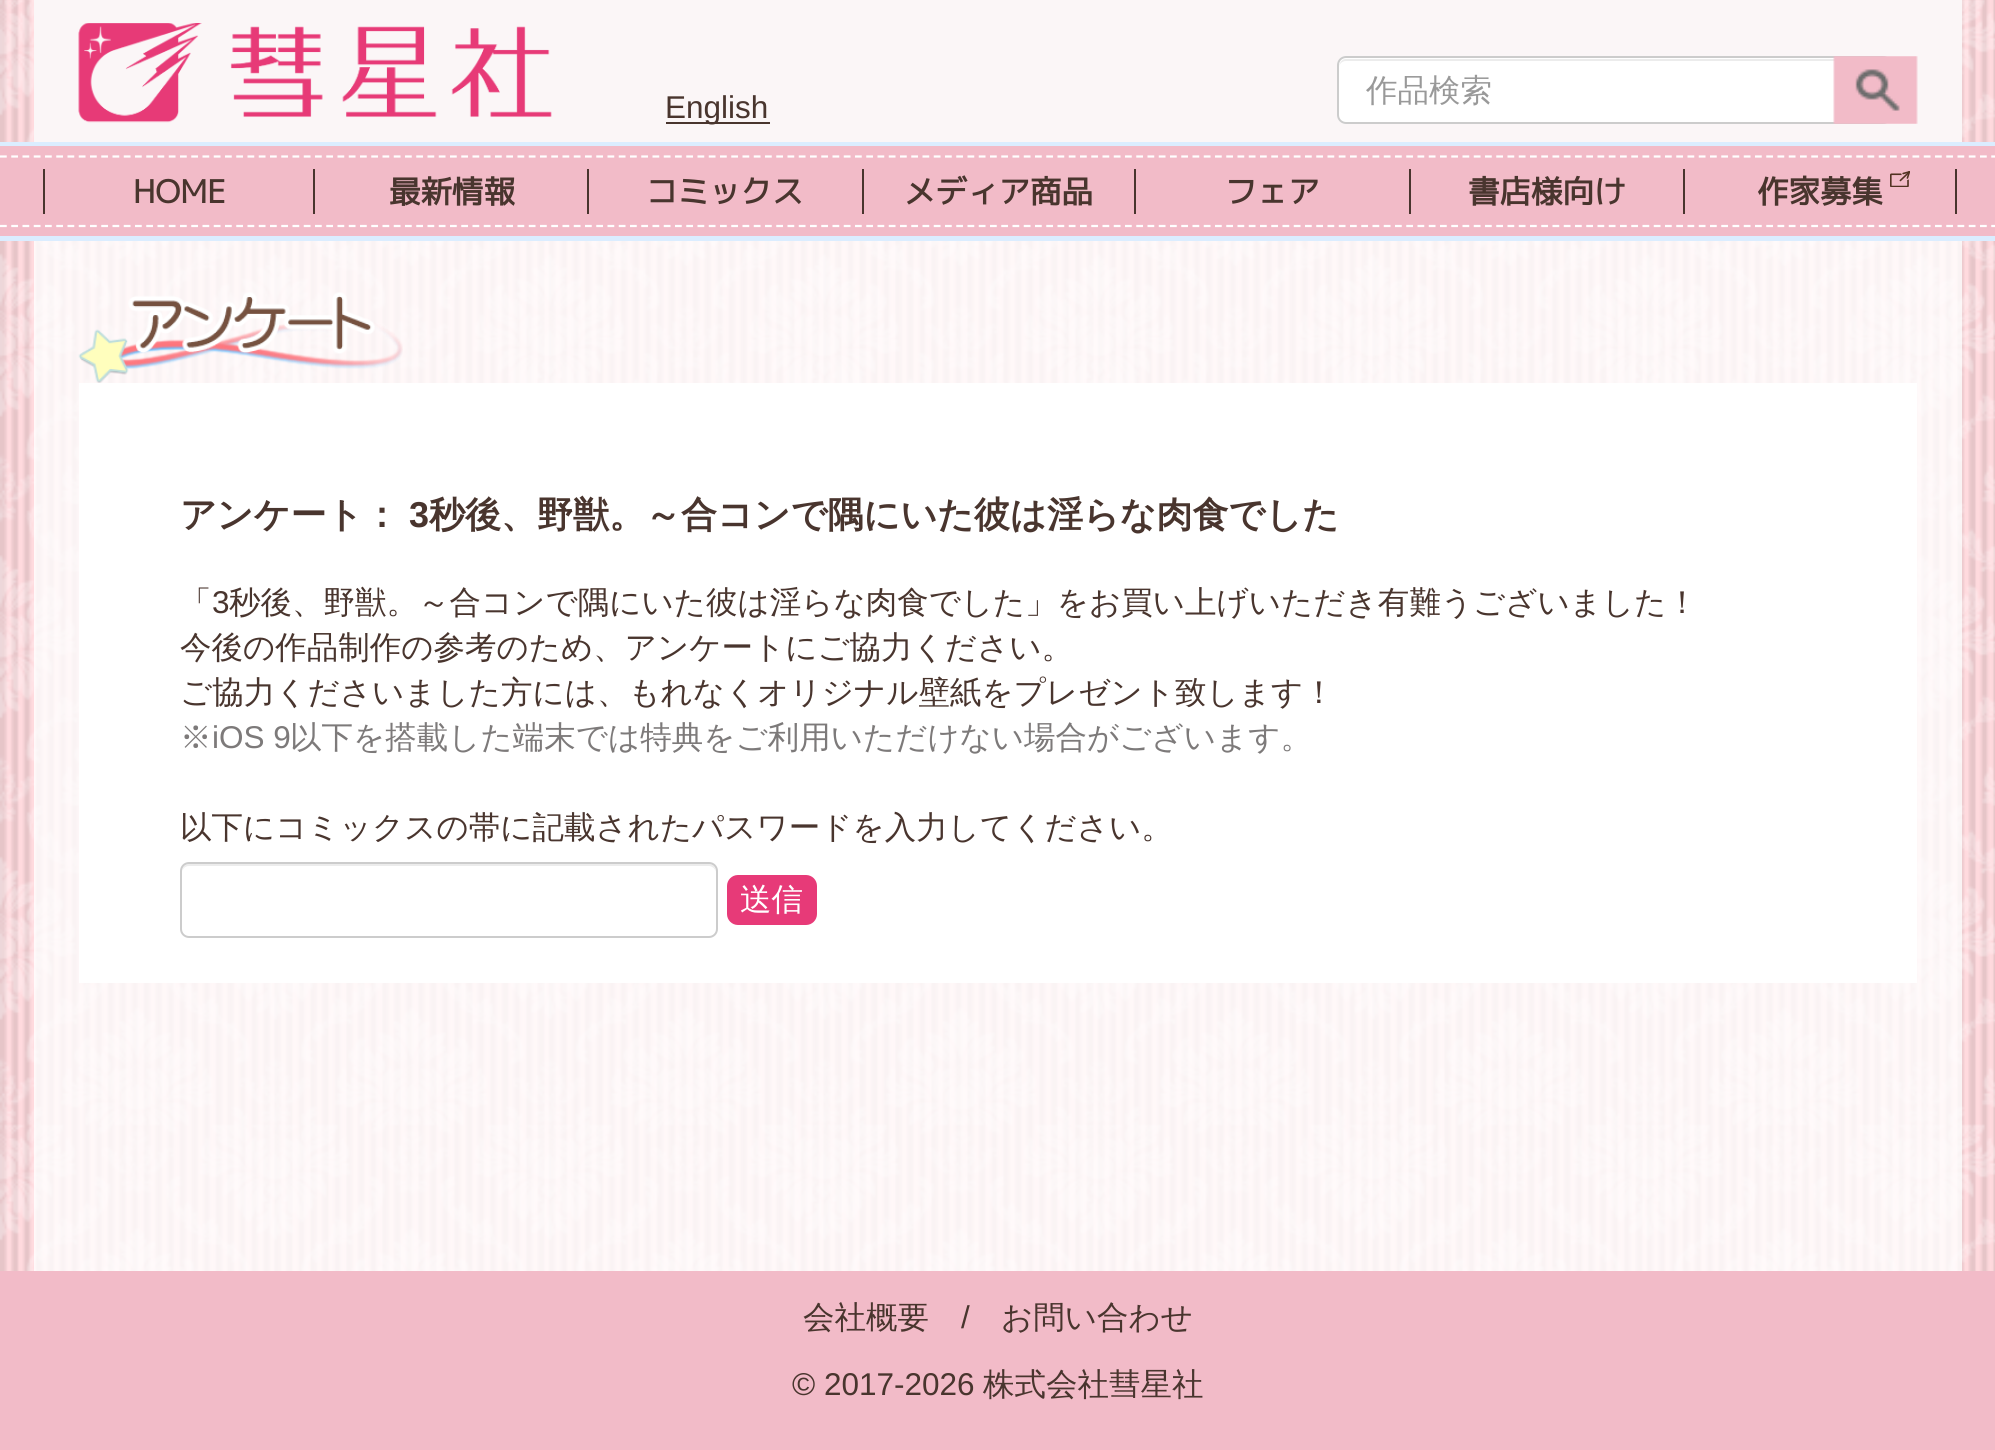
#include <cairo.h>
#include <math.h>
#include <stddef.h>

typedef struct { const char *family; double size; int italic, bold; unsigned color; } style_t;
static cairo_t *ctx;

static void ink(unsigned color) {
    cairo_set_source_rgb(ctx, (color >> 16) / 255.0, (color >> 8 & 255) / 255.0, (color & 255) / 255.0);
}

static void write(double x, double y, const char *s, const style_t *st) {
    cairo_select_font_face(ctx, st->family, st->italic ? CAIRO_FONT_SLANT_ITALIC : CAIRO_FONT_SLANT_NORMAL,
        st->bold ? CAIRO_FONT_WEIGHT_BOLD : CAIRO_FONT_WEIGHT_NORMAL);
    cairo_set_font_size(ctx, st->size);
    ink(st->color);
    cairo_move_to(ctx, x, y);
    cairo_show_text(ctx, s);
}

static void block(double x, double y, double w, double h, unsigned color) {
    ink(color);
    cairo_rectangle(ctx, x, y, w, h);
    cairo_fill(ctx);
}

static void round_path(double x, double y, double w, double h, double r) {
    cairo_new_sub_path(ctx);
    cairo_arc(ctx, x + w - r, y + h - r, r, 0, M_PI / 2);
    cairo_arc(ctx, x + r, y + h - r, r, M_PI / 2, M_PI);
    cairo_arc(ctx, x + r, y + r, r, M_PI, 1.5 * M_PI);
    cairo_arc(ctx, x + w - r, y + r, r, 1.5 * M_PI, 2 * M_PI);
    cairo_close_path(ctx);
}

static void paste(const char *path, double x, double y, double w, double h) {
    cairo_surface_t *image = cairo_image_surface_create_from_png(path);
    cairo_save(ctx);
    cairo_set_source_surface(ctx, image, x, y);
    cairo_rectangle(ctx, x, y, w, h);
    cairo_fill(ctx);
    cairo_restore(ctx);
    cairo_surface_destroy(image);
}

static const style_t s1 = {"WenQuanYi Zen Hei Medium", 31.5, 0, 0, 0x999999};
static const style_t s2 = {"Liberation Sans", 31.5, 0, 0, 0x49352e};
static const style_t s3 = {"M PLUS 1p", 31.5, 0, 1, 0x49352e};
static const style_t s4 = {"WenQuanYi Zen Hei", 36, 0, 1, 0x49352e};
static const style_t s5 = {"Liberation Sans", 36, 0, 1, 0x49352e};
static const style_t s6 = {"WenQuanYi Zen Hei Medium", 31.5, 0, 0, 0x49352e};
static const style_t s7 = {"WenQuanYi Zen Hei Medium", 31.5, 0, 0, 0x7d7a7a};
static const style_t s8 = {"Liberation Sans", 31.5, 0, 0, 0x7d7a7a};
static const style_t s9 = {"WenQuanYi Zen Hei Medium", 31.5, 0, 0, 0xffffff};

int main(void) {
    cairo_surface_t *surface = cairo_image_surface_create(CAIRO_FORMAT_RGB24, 1995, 1450);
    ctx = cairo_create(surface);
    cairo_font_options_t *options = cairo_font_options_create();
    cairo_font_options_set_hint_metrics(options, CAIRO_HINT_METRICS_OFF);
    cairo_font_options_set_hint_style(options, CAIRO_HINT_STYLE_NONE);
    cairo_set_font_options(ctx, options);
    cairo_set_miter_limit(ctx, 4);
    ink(0xffffff);
    cairo_paint(ctx);
    paste("pic1.png", 0, 0, 1995, 1271);
    cairo_set_source_rgba(ctx, 1, 1, 1, 0.8);
    cairo_rectangle(ctx, 34, 241, 1928, 1030);
    cairo_fill(ctx);
    block(34, 0, 1928, 142, 0xfbf6f7);
    paste("pic2.png", 78, 23, 474, 100);
    ink(0xffffff);
    round_path(1337, 56, 555, 68, 9);
    cairo_fill(ctx);
    ink(0xececec);
    cairo_new_path(ctx);
    cairo_move_to(ctx, 1346, 61);
    cairo_line_to(ctx, 1883, 61);
    cairo_curve_to(ctx, 1887, 61, 1890, 64, 1890, 68);
    cairo_curve_to(ctx, 1890, 64, 1888, 59, 1883, 59);
    cairo_line_to(ctx, 1346, 59);
    cairo_curve_to(ctx, 1341, 59, 1339, 64, 1339, 68);
    cairo_curve_to(ctx, 1339, 64, 1342, 61, 1346, 61);
    cairo_close_path(ctx);
    cairo_fill(ctx);
    round_path(1338, 57, 553, 66, 8);
    ink(0xcccccc);
    cairo_stroke(ctx);
    write(1366, 101, "作品検索", &s1);
    paste("pic3.png", 1833, 56, 85, 68);
    block(666, 122, 104, 2, 0x49352e);
    write(665, 118, "English", &s2);
    cairo_rectangle(ctx, -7, 149, 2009, 85);
    ink(0xdbedff);
    cairo_set_line_width(ctx, 14);
    cairo_stroke(ctx);
    cairo_rectangle(ctx, -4.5, 150.5, 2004, 81);
    ink(0xf2bbc8);
    cairo_set_line_width(ctx, 9);
    cairo_stroke(ctx);
    block(0, 155, 1995, 72, 0xf2bbc8);
    cairo_new_path(ctx);
    cairo_move_to(ctx, -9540, 156.5);
    cairo_line_to(ctx, 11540, 156.5);
    ink(0xffffff);
    cairo_set_line_width(ctx, 2.2);
    cairo_set_dash(ctx, (double[]){6.75, 4.5}, 2, 0);
    cairo_stroke(ctx);
    cairo_new_path(ctx);
    cairo_move_to(ctx, -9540, 226);
    cairo_line_to(ctx, 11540, 226);
    cairo_stroke(ctx);
    block(313, 169, 2, 45, 0x49352e);
    block(43, 169, 2, 45, 0x49352e);
    write(133, 203, "HOME", &s3);
    block(587, 169, 2, 45, 0x49352e);
    write(389, 203, "最新情報", &s3);
    block(862, 169, 2, 45, 0x49352e);
    write(646, 203, "コミックス", &s3);
    block(1134, 169, 2, 45, 0x49352e);
    write(904, 203, "メディア商品", &s3);
    block(1409, 169, 2, 45, 0x49352e);
    write(1225, 203, "フェア", &s3);
    block(1683, 169, 2, 45, 0x49352e);
    write(1468, 203, "書店様向け", &s3);
    block(1955, 169, 2, 45, 0x49352e);
    write(1757, 203, "作家募集", &s3);
    paste("pic4.png", 1890, 171, 20, 16);
    paste("pic5.png", 78, 292, 325, 91);
    block(79, 383, 1838, 600, 0xffffff);
    write(180, 527, "アンケート：", &s4);
    write(409, 527, "3", &s5);
    write(429, 527, "秒後、野獣。～合コンで隅にいた彼は淫らな肉食でした", &s4);
    write(180, 613, "「", &s6);
    write(212, 613, "3", &s2);
    write(229, 613, "秒後、野獣。～合コンで隅にいた彼は淫らな肉食でした」をお買い上げいただき有難うございました！", &s6);
    write(180, 658, "今後の作品制作の参考のため、アンケートにご協力ください。", &s6);
    write(180, 703, "ご協力くださいました方には、もれなくオリジナル壁紙をプレゼント致します！", &s6);
    write(180, 748, "※", &s7);
    write(212, 748, "iOS 9", &s8);
    write(290, 748, "以下を搭載した端末では特典をご利用いただけない場合がございます。", &s7);
    write(180, 838, "以下にコミックスの帯に記載されたパスワードを入力してください。", &s6);
    ink(0xececec);
    cairo_new_path(ctx);
    cairo_move_to(ctx, 189, 866);
    cairo_line_to(ctx, 709, 866);
    cairo_curve_to(ctx, 712, 866, 716, 869, 716, 873);
    cairo_curve_to(ctx, 716, 869, 714, 864, 709, 864);
    cairo_line_to(ctx, 189, 864);
    cairo_curve_to(ctx, 184, 864, 182, 869, 182, 873);
    cairo_curve_to(ctx, 182, 869, 185, 866, 189, 866);
    cairo_close_path(ctx);
    cairo_fill(ctx);
    round_path(181, 863, 536, 74, 8);
    ink(0xcccccc);
    cairo_set_line_width(ctx, 2);
    cairo_set_dash(ctx, NULL, 0, 0);
    cairo_stroke(ctx);
    ink(0xe73a78);
    round_path(727, 875, 90, 50, 11);
    cairo_fill(ctx);
    write(740, 910, "送信", &s9);
    block(0, 1271, 1995, 179, 0xf2bbc8);
    write(803, 1328, "会社概要", &s6);
    write(961, 1328, "/", &s2);
    write(1001, 1328, "お問い合わせ", &s6);
    write(792, 1395, "© 2017-2026", &s2);
    write(983, 1395, "株式会社彗星社", &s6);
    cairo_surface_write_to_png(surface, "screenshot.png");
    cairo_font_options_destroy(options);
    cairo_destroy(ctx);
    cairo_surface_destroy(surface);
    return 0;
}
